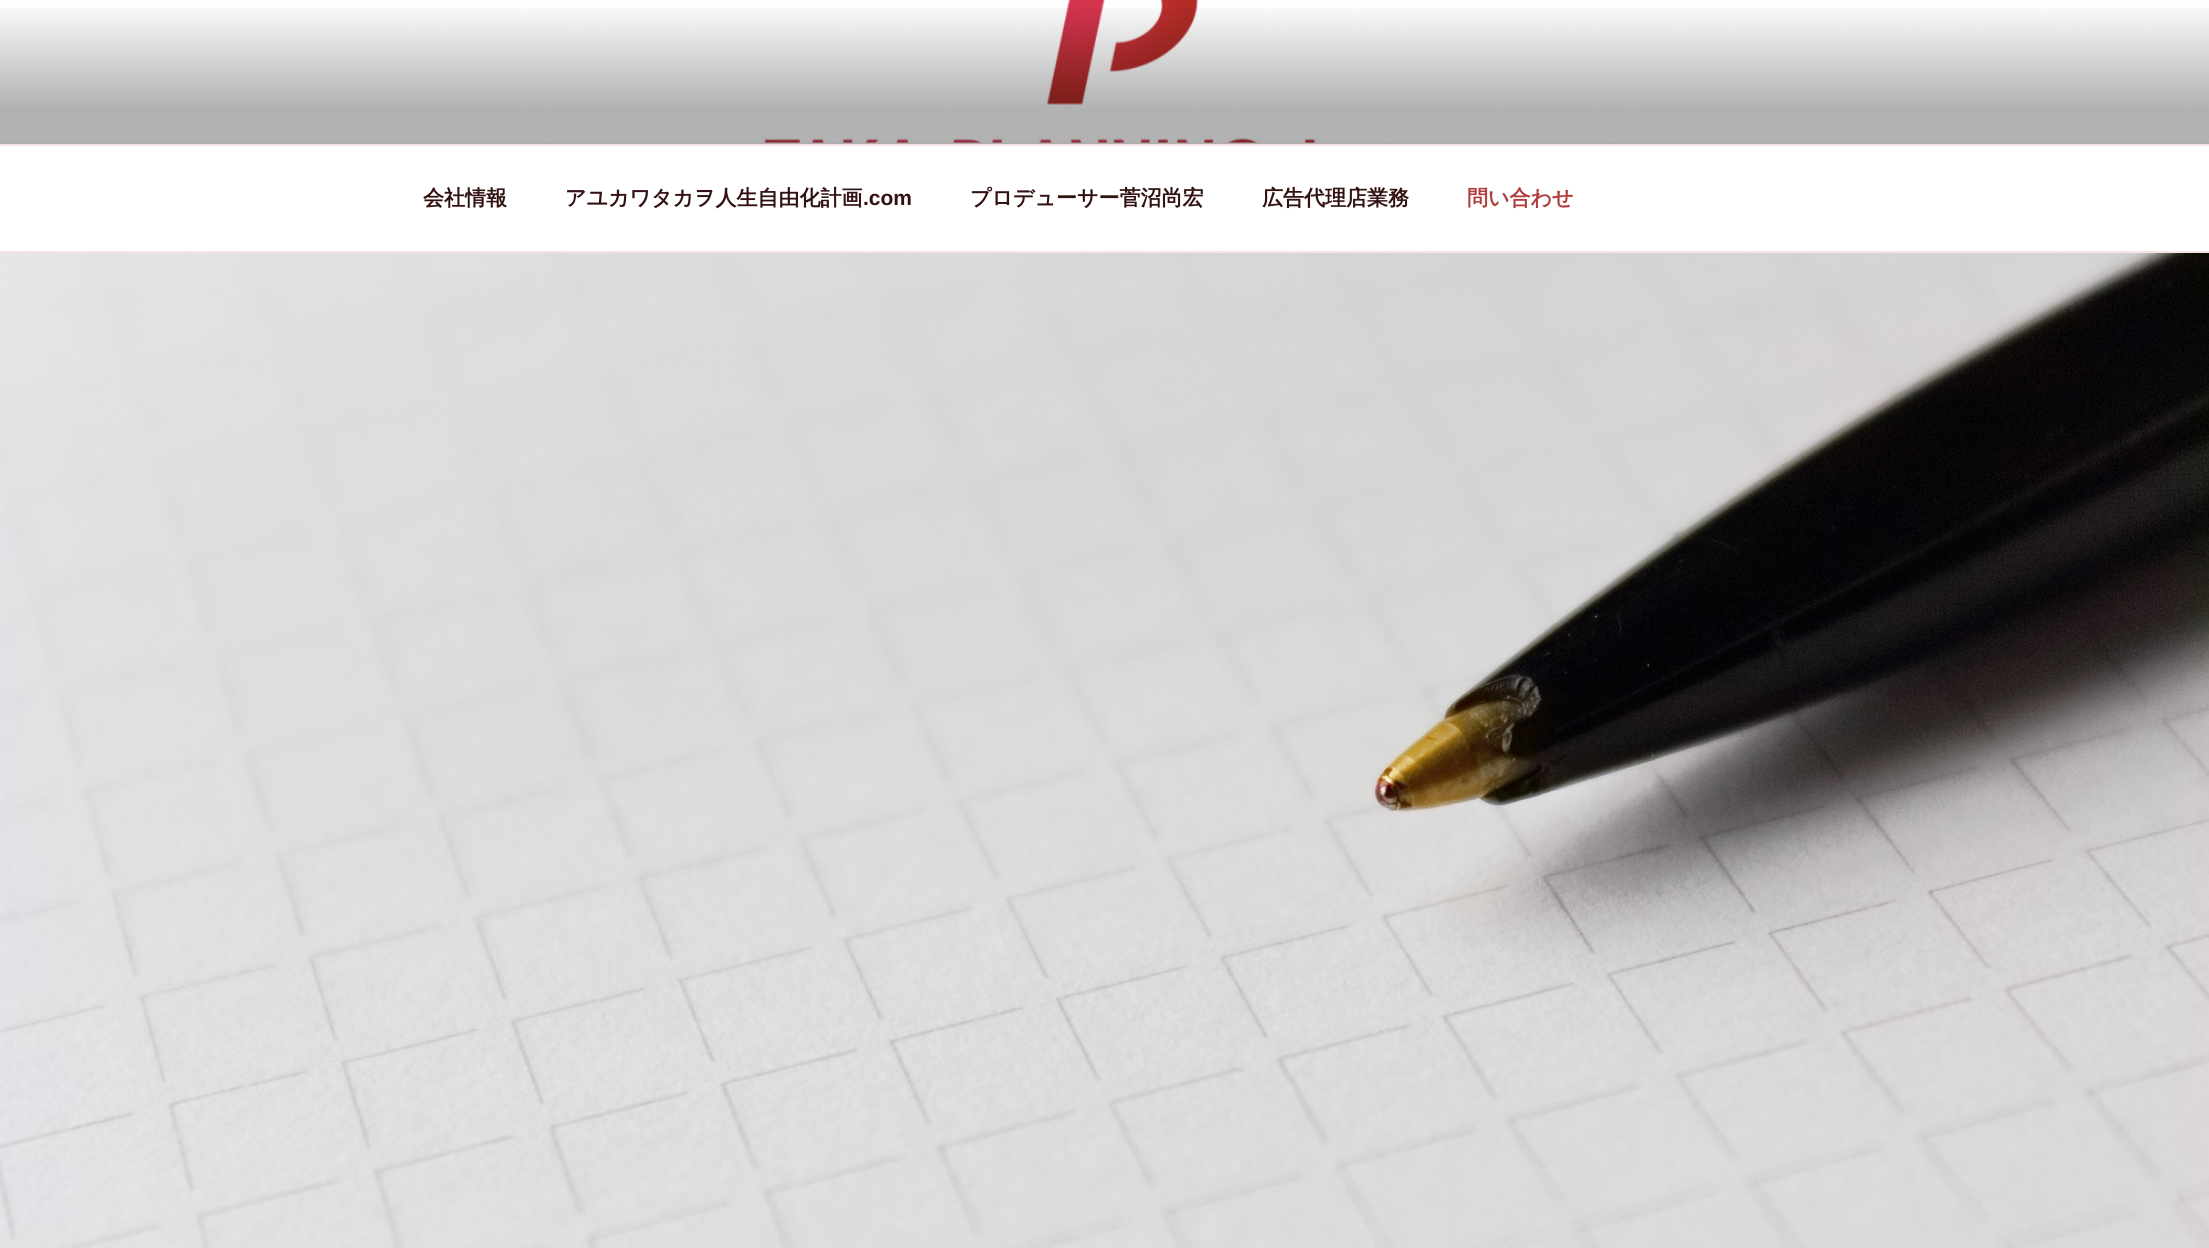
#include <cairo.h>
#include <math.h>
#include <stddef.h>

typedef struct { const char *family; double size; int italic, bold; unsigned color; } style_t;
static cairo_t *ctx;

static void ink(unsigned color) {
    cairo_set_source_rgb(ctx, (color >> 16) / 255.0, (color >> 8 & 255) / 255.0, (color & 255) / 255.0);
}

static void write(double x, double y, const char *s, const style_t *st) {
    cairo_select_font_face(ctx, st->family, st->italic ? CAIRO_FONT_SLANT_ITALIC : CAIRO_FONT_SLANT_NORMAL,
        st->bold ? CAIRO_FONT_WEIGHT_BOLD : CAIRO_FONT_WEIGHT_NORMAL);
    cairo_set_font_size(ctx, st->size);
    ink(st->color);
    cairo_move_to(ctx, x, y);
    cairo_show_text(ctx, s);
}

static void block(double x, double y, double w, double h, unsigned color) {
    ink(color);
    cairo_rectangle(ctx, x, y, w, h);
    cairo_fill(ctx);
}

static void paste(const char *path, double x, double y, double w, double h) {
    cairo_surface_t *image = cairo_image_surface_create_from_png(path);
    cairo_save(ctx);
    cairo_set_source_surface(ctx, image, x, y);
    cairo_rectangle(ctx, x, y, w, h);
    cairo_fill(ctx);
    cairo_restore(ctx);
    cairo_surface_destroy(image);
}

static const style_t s1 = {"WenQuanYi Zen Hei", 21, 0, 1, 0x321111};
static const style_t s2 = {"Liberation Sans", 21, 0, 1, 0x321111};
static const style_t s3 = {"WenQuanYi Zen Hei", 21, 0, 1, 0xb03b3b};

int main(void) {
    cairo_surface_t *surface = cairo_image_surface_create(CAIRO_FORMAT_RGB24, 2209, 1248);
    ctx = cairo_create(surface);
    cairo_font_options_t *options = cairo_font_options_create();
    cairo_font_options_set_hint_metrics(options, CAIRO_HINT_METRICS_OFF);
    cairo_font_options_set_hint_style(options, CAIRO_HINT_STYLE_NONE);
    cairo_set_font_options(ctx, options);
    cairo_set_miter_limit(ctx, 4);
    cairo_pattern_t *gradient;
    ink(0xffffff);
    cairo_paint(ctx);
    block(0, 142, 2209, 2, 0xfcf7f7);
    paste("pic1.png", 0, 0, 2209, 143);
    gradient = cairo_pattern_create_linear(1105, 0, 1105, 144);
    cairo_pattern_add_color_stop_rgba(gradient, 0, 0, 0, 0, 0);
    cairo_pattern_add_color_stop_rgba(gradient, 0.75, 0, 0, 0, 0.3);
    cairo_pattern_add_color_stop_rgba(gradient, 1, 0, 0, 0, 0.3);
    cairo_set_source(ctx, gradient);
    cairo_pattern_destroy(gradient);
    cairo_rectangle(ctx, 0, 8, 2209, 136);
    cairo_fill(ctx);
    block(0, 144, 2209, 2, 0xf6e4e4);
    block(0, 251, 2209, 2, 0xf6e4e4);
    write(423, 205, "会社情報", &s1);
    write(565, 205, "アユカワタカヲ人生自由化計画", &s1);
    write(863, 205, ".com", &s2);
    write(970, 205, "プロデューサー菅沼尚宏", &s1);
    write(1262, 205, "広告代理店業務", &s1);
    write(1467, 205, "問い合わせ", &s3);
    paste("pic2.png", 0, 253, 2209, 995);
    cairo_surface_write_to_png(surface, "screenshot.png");
    cairo_font_options_destroy(options);
    cairo_destroy(ctx);
    cairo_surface_destroy(surface);
    return 0;
}
